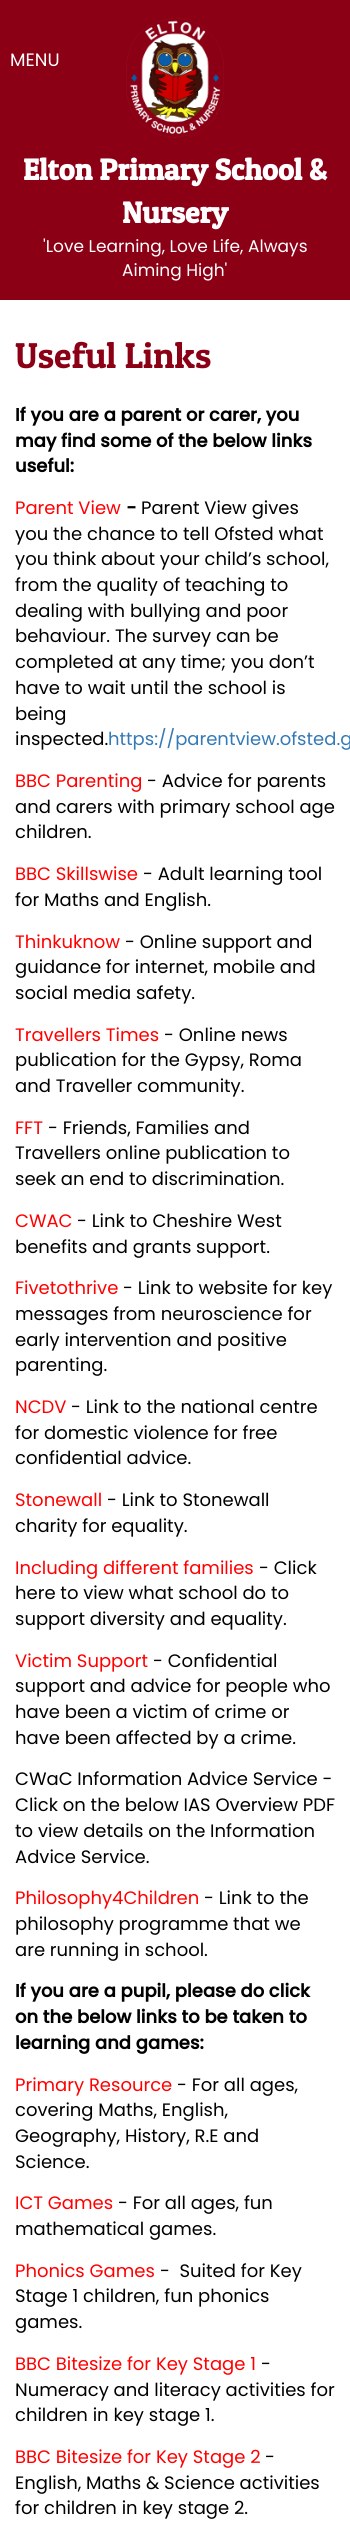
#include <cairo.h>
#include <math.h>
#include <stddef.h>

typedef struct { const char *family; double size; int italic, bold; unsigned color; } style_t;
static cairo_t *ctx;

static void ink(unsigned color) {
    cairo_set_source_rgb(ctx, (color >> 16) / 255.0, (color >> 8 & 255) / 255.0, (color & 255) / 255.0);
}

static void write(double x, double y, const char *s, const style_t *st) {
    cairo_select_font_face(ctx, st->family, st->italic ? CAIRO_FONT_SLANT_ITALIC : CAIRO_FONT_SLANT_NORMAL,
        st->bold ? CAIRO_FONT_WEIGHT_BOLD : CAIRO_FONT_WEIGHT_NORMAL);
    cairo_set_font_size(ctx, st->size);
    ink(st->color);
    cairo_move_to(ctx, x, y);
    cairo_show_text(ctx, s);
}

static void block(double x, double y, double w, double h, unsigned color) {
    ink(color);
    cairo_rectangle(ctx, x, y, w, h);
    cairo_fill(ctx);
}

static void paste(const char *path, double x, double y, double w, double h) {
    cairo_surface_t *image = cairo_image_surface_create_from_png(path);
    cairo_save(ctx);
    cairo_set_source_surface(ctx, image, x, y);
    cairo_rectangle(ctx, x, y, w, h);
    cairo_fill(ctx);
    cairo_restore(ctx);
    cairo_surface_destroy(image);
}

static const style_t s1 = {"Poppins", 18, 0, 0, 0xffffff};
static const style_t s2 = {"Patua One", 30, 0, 1, 0xffffff};
static const style_t s3 = {"Poppins", 17, 0, 0, 0xffffff};
static const style_t s4 = {"Patua One", 36, 0, 0, 0x8c0016};
static const style_t s5 = {"Poppins", 18, 0, 1, 0x000000};
static const style_t s6 = {"Poppins", 18, 0, 0, 0xff0000};
static const style_t s7 = {"Poppins", 18, 0, 0, 0x000000};
static const style_t s8 = {"Poppins", 18, 0, 0, 0x337ab7};

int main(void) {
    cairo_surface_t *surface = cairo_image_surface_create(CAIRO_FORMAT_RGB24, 350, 2524);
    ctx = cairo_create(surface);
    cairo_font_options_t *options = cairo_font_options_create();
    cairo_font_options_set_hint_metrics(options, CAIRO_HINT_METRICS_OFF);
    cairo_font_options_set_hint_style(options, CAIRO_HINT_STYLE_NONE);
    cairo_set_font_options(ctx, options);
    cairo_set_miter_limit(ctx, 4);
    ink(0xffffff);
    cairo_paint(ctx);
    block(0, 0, 350, 300, 0x8c0016);
    write(10, 66, "MENU", &s1);
    paste("pic1.png", 126, 18, 98, 120);
    write(23, 180, "Elton Primary School &", &s2);
    write(122, 223, "Nursery", &s2);
    write(43, 252, "'Love Learning, Love Life, Always", &s3);
    write(122, 276, "Aiming High'", &s3);
    write(15, 368, "Useful Links", &s4);
    write(15, 421, "If you are a parent or carer, you", &s5);
    write(15, 447, "may find some of the below links", &s5);
    write(15, 472, "useful:", &s5);
    write(15, 514, "Parent View", &s6);
    write(126, 514, "-", &s5);
    write(141, 514, "Parent View gives", &s7);
    write(15, 540, "you the chance to tell Ofsted what", &s7);
    write(15, 565, "you think about your child’s school,", &s7);
    write(15, 591, "from the quality of teaching to", &s7);
    write(15, 617, "dealing with bullying and poor", &s7);
    write(15, 642, "behaviour. The survey can be", &s7);
    write(15, 668, "completed at any time; you don’t", &s7);
    write(15, 694, "have to wait until the school is", &s7);
    write(15, 720, "being", &s7);
    write(15, 745, "inspected.", &s7);
    write(108, 745, "https://parentview.ofsted.g", &s8);
    write(15, 787, "BBC Parenting", &s6);
    write(147, 787, "- Advice for parents", &s7);
    write(15, 813, "and carers with primary school age", &s7);
    write(15, 838, "children.", &s7);
    write(15, 880, "BBC Skillswise", &s6);
    write(143, 880, "- Adult learning tool", &s7);
    write(15, 906, "for Maths and English.", &s7);
    write(15, 948, "Thinkuknow", &s6);
    write(125, 948, "- Online support and", &s7);
    write(15, 973, "guidance for internet, mobile and", &s7);
    write(15, 999, "social media safety.", &s7);
    write(15, 1041, "Travellers Times", &s6);
    write(164, 1041, "- Online news", &s7);
    write(15, 1066, "publication for the Gypsy, Roma", &s7);
    write(15, 1092, "and Traveller community.", &s7);
    write(15, 1134, "FFT", &s6);
    write(48, 1134, "- Friends, Families and", &s7);
    write(15, 1159, "Travellers online publication to", &s7);
    write(15, 1185, "seek an end to discrimination.", &s7);
    write(15, 1227, "CWAC", &s6);
    write(77, 1227, "- Link to Cheshire West", &s7);
    write(15, 1253, "benefits and grants support.", &s7);
    write(15, 1294, "Fivetothrive", &s6);
    write(123, 1294, "- Link to website for key", &s7);
    write(15, 1320, "messages from neuroscience for", &s7);
    write(15, 1346, "early intervention and positive", &s7);
    write(15, 1371, "parenting.", &s7);
    write(15, 1413, "NCDV", &s6);
    write(71, 1413, "- Link to the national centre", &s7);
    write(15, 1439, "for domestic violence for free", &s7);
    write(15, 1464, "confidential advice.", &s7);
    write(15, 1506, "Stonewall", &s6);
    write(107, 1506, "- Link to Stonewall", &s7);
    write(15, 1532, "charity for equality.", &s7);
    write(15, 1574, "Including different families", &s6);
    write(259, 1574, "- Click", &s7);
    write(15, 1599, "here to view what school do to", &s7);
    write(15, 1625, "support diversity and equality.", &s7);
    write(15, 1667, "Victim Support", &s6);
    write(153, 1667, "- Confidential", &s7);
    write(15, 1692, "support and advice for people who", &s7);
    write(15, 1718, "have been a victim of crime or", &s7);
    write(15, 1744, "have been affected by a crime.", &s7);
    write(15, 1785, "CWaC Information Advice Service -", &s7);
    write(15, 1811, "Click on the below IAS Overview PDF", &s7);
    write(15, 1837, "to view details on the Information", &s7);
    write(15, 1863, "Advice Service.", &s7);
    write(15, 1904, "Philosophy4Children", &s6);
    write(204, 1904, "- Link to the", &s7);
    write(15, 1930, "philosophy programme that we", &s7);
    write(15, 1956, "are running in school.", &s7);
    write(15, 1997, "If you are a pupil, please do click", &s5);
    write(15, 2023, "on the below links to be taken to", &s5);
    write(15, 2049, "learning and games:", &s5);
    write(15, 2091, "Primary Resource", &s6);
    write(177, 2091, "- For all ages,", &s7);
    write(15, 2116, "covering Maths, English,", &s7);
    write(15, 2142, "Geography, History, R.E and", &s7);
    write(15, 2168, "Science.", &s7);
    write(15, 2209, "ICT Games", &s6);
    write(118, 2209, "- For all ages, fun", &s7);
    write(15, 2235, "mathematical games.", &s7);
    write(15, 2277, "Phonics Games", &s6);
    write(160, 2277, "-  Suited for Key", &s7);
    write(15, 2302, "Stage 1 children, fun phonics", &s7);
    write(15, 2328, "games.", &s7);
    write(15, 2370, "BBC Bitesize for Key Stage 1", &s6);
    write(261, 2370, "-", &s7);
    write(15, 2396, "Numeracy and literacy activities for", &s7);
    write(15, 2421, "children in key stage 1.", &s7);
    write(15, 2463, "BBC Bitesize for Key Stage 2", &s6);
    write(265, 2463, "-", &s7);
    write(15, 2489, "English, Maths & Science activities", &s7);
    write(15, 2514, "for children in key stage 2.", &s7);
    cairo_surface_write_to_png(surface, "screenshot.png");
    cairo_font_options_destroy(options);
    cairo_destroy(ctx);
    cairo_surface_destroy(surface);
    return 0;
}
